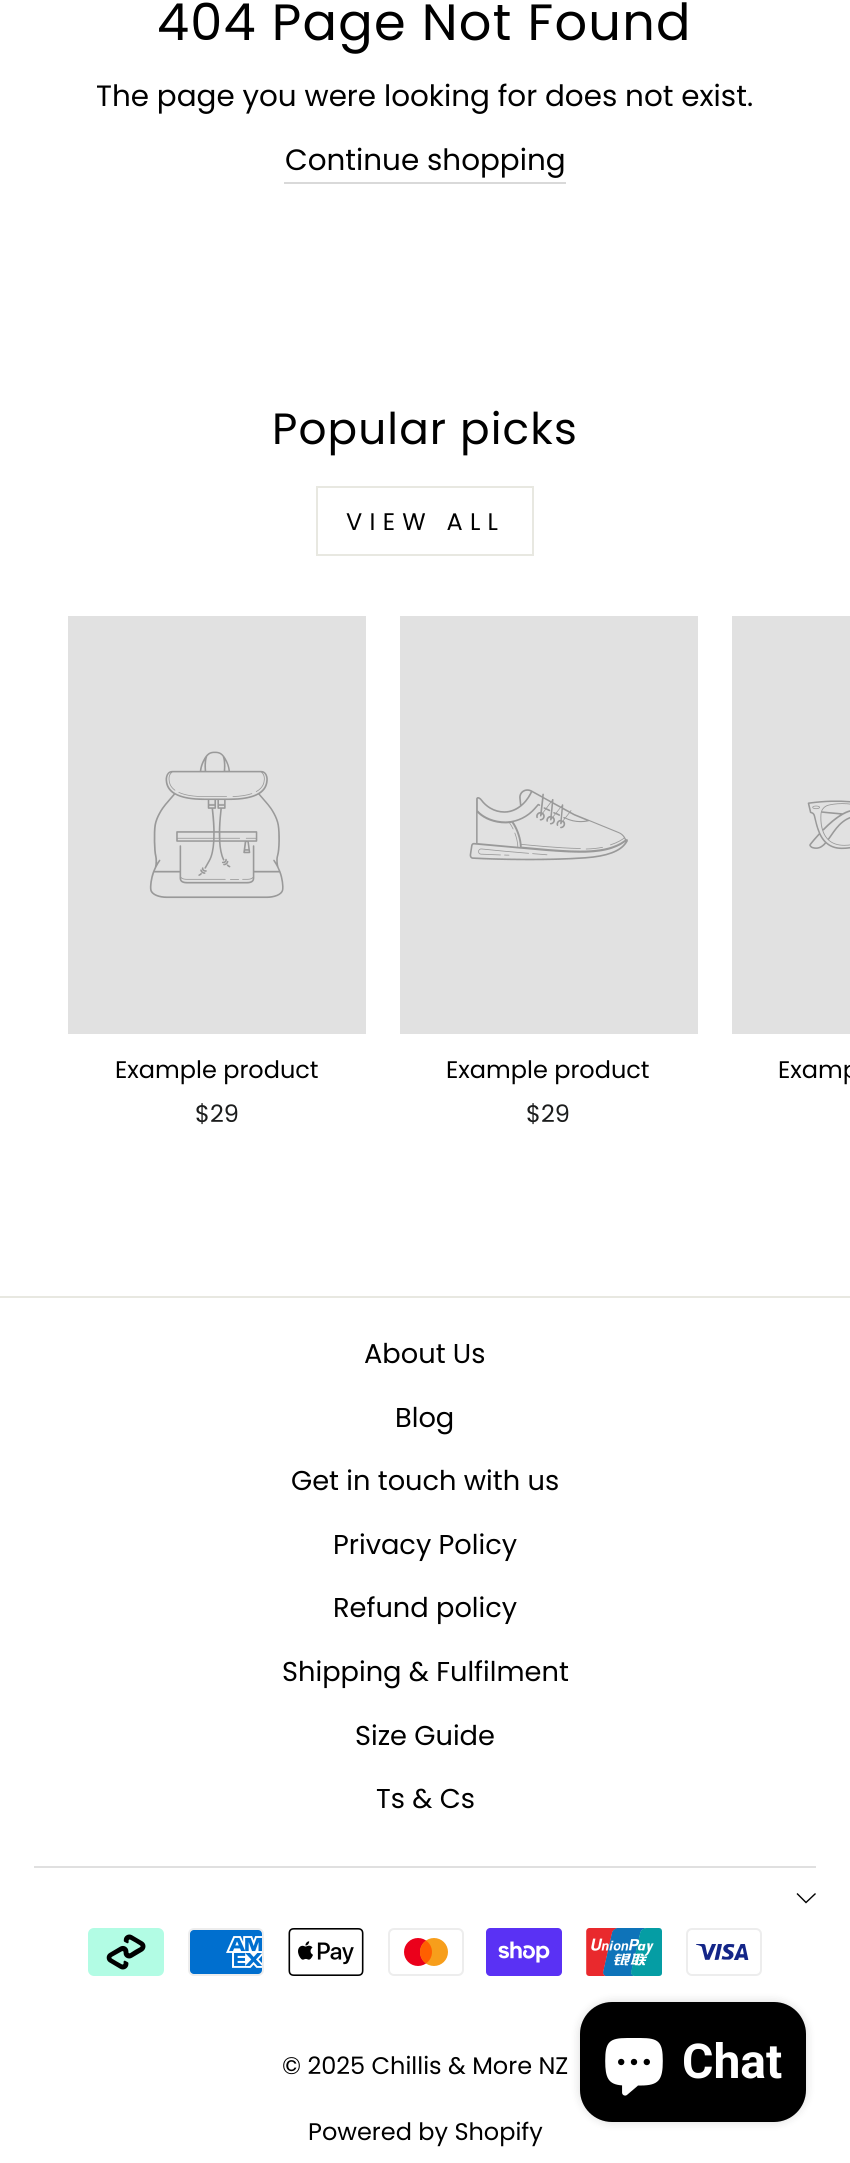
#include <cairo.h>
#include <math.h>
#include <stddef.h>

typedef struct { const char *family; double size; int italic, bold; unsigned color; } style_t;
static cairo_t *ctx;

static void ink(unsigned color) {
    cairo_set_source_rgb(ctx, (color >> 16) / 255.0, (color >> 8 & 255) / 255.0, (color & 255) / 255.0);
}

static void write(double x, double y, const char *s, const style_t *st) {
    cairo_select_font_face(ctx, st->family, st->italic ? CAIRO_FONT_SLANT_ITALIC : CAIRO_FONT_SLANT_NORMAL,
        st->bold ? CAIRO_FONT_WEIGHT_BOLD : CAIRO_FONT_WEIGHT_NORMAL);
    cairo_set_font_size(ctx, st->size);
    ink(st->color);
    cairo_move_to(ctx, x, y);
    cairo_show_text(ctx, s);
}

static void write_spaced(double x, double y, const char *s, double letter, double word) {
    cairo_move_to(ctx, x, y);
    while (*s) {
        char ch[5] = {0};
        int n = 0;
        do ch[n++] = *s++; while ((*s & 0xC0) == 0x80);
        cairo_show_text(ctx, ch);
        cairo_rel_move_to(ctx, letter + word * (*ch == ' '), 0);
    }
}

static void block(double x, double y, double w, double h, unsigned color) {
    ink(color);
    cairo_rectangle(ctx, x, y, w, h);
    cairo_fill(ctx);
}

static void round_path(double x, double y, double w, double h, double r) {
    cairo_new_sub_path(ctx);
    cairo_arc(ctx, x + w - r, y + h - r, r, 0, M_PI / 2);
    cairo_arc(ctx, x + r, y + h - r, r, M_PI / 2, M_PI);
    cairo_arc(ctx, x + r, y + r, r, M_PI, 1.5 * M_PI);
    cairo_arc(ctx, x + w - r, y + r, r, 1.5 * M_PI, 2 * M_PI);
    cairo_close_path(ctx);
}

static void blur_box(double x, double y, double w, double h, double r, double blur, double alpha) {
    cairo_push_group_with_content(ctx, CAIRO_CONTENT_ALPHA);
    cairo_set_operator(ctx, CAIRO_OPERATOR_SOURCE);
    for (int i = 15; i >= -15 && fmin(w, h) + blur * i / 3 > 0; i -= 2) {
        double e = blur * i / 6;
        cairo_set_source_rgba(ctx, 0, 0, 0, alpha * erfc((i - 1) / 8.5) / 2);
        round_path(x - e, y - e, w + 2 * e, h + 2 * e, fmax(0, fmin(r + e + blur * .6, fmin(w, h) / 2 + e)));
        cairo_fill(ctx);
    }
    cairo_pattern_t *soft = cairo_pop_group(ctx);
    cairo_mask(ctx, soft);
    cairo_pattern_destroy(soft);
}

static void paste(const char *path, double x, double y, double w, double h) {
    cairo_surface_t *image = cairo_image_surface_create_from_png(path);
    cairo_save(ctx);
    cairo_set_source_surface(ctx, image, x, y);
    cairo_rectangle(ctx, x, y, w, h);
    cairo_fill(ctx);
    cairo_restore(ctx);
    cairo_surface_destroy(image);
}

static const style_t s1 = {"Poppins", 29.4, 0, 0, 0x000000};
static const style_t s2 = {"Poppins", 24, 0, 0, 0x000000};
static const style_t s3 = {"Poppins", 24, 0, 0, 0x1c1d1d};
static const style_t s4 = {"Poppins", 27.25, 0, 0, 0x000000};
static const style_t s5 = {"Roboto", 48, 0, 1, 0xffffff};

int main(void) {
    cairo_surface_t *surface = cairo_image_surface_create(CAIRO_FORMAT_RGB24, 850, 2163);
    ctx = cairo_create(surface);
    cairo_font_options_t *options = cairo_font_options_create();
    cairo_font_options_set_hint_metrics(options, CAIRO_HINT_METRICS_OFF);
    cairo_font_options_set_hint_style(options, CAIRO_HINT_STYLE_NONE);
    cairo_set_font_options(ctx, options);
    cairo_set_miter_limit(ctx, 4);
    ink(0xffffff);
    cairo_paint(ctx);
    cairo_select_font_face(ctx, "Poppins", CAIRO_FONT_SLANT_NORMAL, CAIRO_FONT_WEIGHT_NORMAL);
    cairo_set_font_size(ctx, 51);
    ink(0x000000);
    write_spaced(157, 40, "404 Page Not Found", 1.25, 0);
    write(96, 106, "The page you were looking for does not exist.", &s1);
    block(284, 182, 282, 2, 0xd9d9d9);
    write(285, 170, "Continue shopping", &s1);
    cairo_set_font_size(ctx, 43.75);
    write_spaced(272, 444, "Popular picks", 1.1, 0);
    cairo_rectangle(ctx, 317, 487, 216, 68);
    ink(0xe8e8e1);
    cairo_stroke(ctx);
    cairo_set_font_size(ctx, 24);
    ink(0x000000);
    write_spaced(346, 530, "VIEW ALL", 7.25, 0);
    block(68, 616, 298, 418, 0xe1e1e1);
    paste("pic1.png", 149, 751, 135, 148);
    write(115, 1078, "Example product", &s2);
    write(195, 1122, "$29", &s3);
    block(400, 616, 298, 418, 0xe1e1e1);
    paste("pic2.png", 469, 789, 159, 72);
    write(446, 1078, "Example product", &s2);
    write(526, 1122, "$29", &s3);
    block(732, 616, 118, 418, 0xe1e1e1);
    paste("pic3.png", 807, 800, 43, 50);
    write(778, 1078, "Examp", &s2);
    block(0, 1296, 850, 2, 0xe8e8e1);
    write(364, 1363, "About Us", &s4);
    write(395, 1427, "Blog", &s4);
    write(291, 1490, "Get in touch with us", &s4);
    write(333, 1554, "Privacy Policy", &s4);
    write(333, 1617, "Refund policy", &s4);
    write(282, 1681, "Shipping & Fulfilment", &s4);
    write(355, 1745, "Size Guide", &s4);
    write(376, 1808, "Ts & Cs", &s4);
    block(34, 1866, 782, 2, 0xe0e0e0);
    cairo_new_path(ctx);
    cairo_move_to(ctx, 797, 1893.5);
    cairo_line_to(ctx, 806, 1902.5);
    cairo_line_to(ctx, 815.5, 1893.5);
    ink(0x000000);
    cairo_set_line_width(ctx, 1.4);
    cairo_stroke(ctx);
    paste("pic4.png", 88, 1928, 76, 48);
    paste("pic5.png", 188, 1928, 76, 48);
    paste("pic6.png", 288, 1928, 76, 48);
    paste("pic7.png", 388, 1928, 76, 48);
    paste("pic8.png", 486, 1928, 76, 48);
    paste("pic9.png", 586, 1928, 76, 48);
    paste("pic10.png", 686, 1928, 76, 48);
    write(282, 2074, "© 2025 Chillis & More NZ", &s2);
    write(308, 2140, "Powered by Shopify", &s2);
    ink(0x000000);
    blur_box(580, 2002, 226, 120, 32, 5, 0.15);
    ink(0x000000);
    round_path(580, 2002, 226, 120, 32);
    cairo_fill(ctx);
    paste("pic11.png", 605, 2038, 58, 58);
    write(682, 2078, "Chat", &s5);
    cairo_surface_write_to_png(surface, "screenshot.png");
    cairo_font_options_destroy(options);
    cairo_destroy(ctx);
    cairo_surface_destroy(surface);
    return 0;
}
